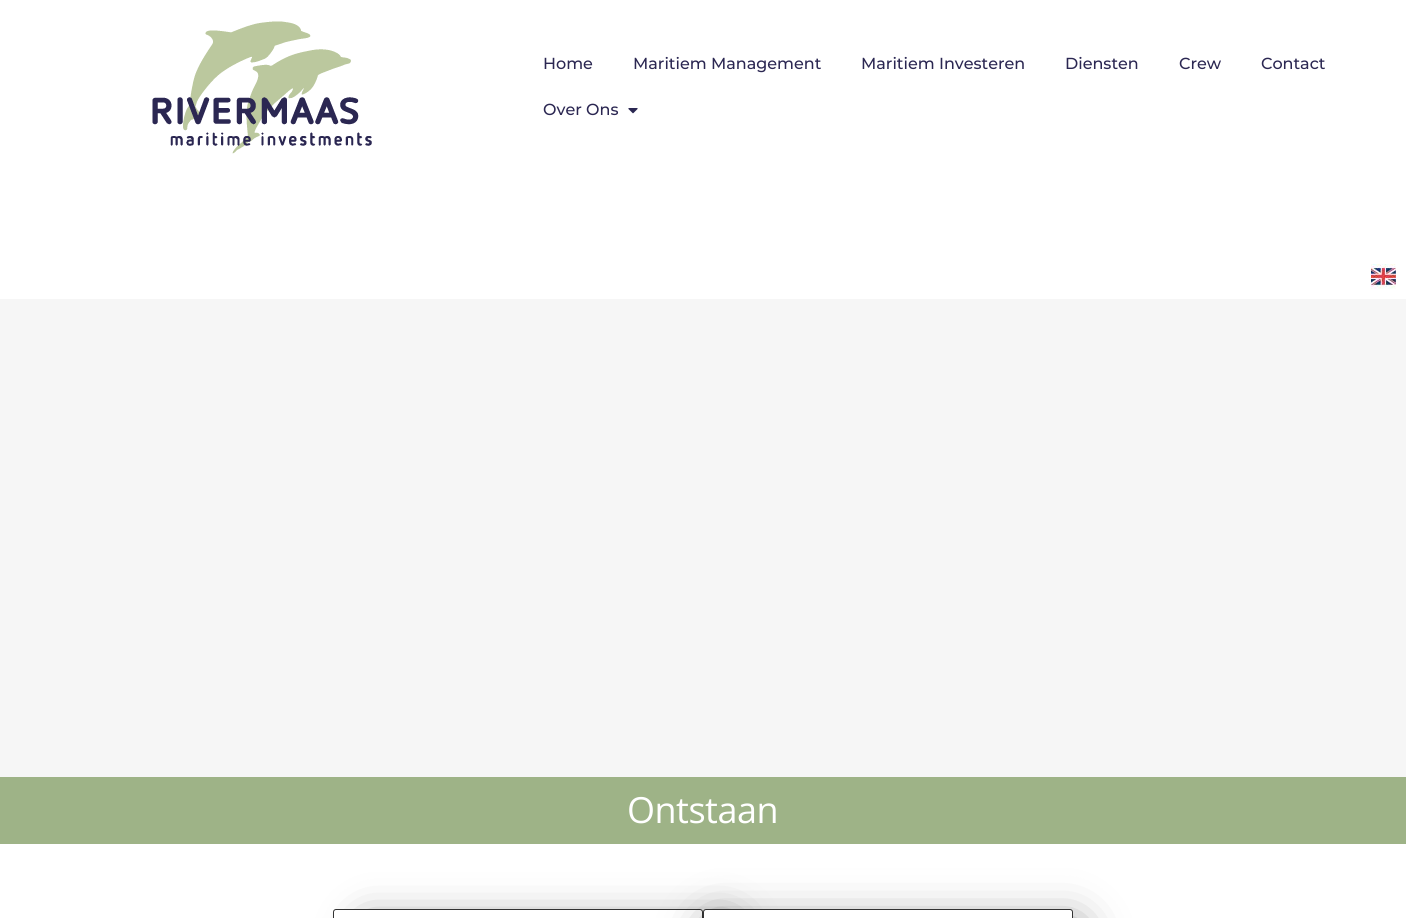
#include <cairo.h>
#include <math.h>
#include <stddef.h>

typedef struct { const char *family; double size; int italic, bold; unsigned color; } style_t;
static cairo_t *ctx;

static void ink(unsigned color) {
    cairo_set_source_rgb(ctx, (color >> 16) / 255.0, (color >> 8 & 255) / 255.0, (color & 255) / 255.0);
}

static void write(double x, double y, const char *s, const style_t *st) {
    cairo_select_font_face(ctx, st->family, st->italic ? CAIRO_FONT_SLANT_ITALIC : CAIRO_FONT_SLANT_NORMAL,
        st->bold ? CAIRO_FONT_WEIGHT_BOLD : CAIRO_FONT_WEIGHT_NORMAL);
    cairo_set_font_size(ctx, st->size);
    ink(st->color);
    cairo_move_to(ctx, x, y);
    cairo_show_text(ctx, s);
}

static void write_spaced(double x, double y, const char *s, double letter, double word) {
    cairo_move_to(ctx, x, y);
    while (*s) {
        char ch[5] = {0};
        int n = 0;
        do ch[n++] = *s++; while ((*s & 0xC0) == 0x80);
        cairo_show_text(ctx, ch);
        cairo_rel_move_to(ctx, letter + word * (*ch == ' '), 0);
    }
}

static void block(double x, double y, double w, double h, unsigned color) {
    ink(color);
    cairo_rectangle(ctx, x, y, w, h);
    cairo_fill(ctx);
}

static void round_path(double x, double y, double w, double h, double r) {
    cairo_new_sub_path(ctx);
    cairo_arc(ctx, x + w - r, y + h - r, r, 0, M_PI / 2);
    cairo_arc(ctx, x + r, y + h - r, r, M_PI / 2, M_PI);
    cairo_arc(ctx, x + r, y + r, r, M_PI, 1.5 * M_PI);
    cairo_arc(ctx, x + w - r, y + r, r, 1.5 * M_PI, 2 * M_PI);
    cairo_close_path(ctx);
}

static void blur_box(double x, double y, double w, double h, double r, double blur, double alpha) {
    cairo_push_group_with_content(ctx, CAIRO_CONTENT_ALPHA);
    cairo_set_operator(ctx, CAIRO_OPERATOR_SOURCE);
    for (int i = 15; i >= -15 && fmin(w, h) + blur * i / 3 > 0; i -= 2) {
        double e = blur * i / 6;
        cairo_set_source_rgba(ctx, 0, 0, 0, alpha * erfc((i - 1) / 8.5) / 2);
        round_path(x - e, y - e, w + 2 * e, h + 2 * e, fmax(0, fmin(r + e + blur * .6, fmin(w, h) / 2 + e)));
        cairo_fill(ctx);
    }
    cairo_pattern_t *soft = cairo_pop_group(ctx);
    cairo_mask(ctx, soft);
    cairo_pattern_destroy(soft);
}

static void paste(const char *path, double x, double y, double w, double h) {
    cairo_surface_t *image = cairo_image_surface_create_from_png(path);
    cairo_save(ctx);
    cairo_set_source_surface(ctx, image, x, y);
    cairo_rectangle(ctx, x, y, w, h);
    cairo_fill(ctx);
    cairo_restore(ctx);
    cairo_surface_destroy(image);
}

static const style_t s1 = {"Montserrat Medium", 16, 0, 0, 0x2b2752};

int main(void) {
    cairo_surface_t *surface = cairo_image_surface_create(CAIRO_FORMAT_RGB24, 1406, 918);
    ctx = cairo_create(surface);
    cairo_font_options_t *options = cairo_font_options_create();
    cairo_font_options_set_hint_metrics(options, CAIRO_HINT_METRICS_OFF);
    cairo_font_options_set_hint_style(options, CAIRO_HINT_STYLE_NONE);
    cairo_set_font_options(ctx, options);
    cairo_set_miter_limit(ctx, 4);
    ink(0xffffff);
    cairo_paint(ctx);
    paste("pic1.png", 152, 21, 220, 133);
    write(543, 69, "Home", &s1);
    write(633, 69, "Maritiem Management", &s1);
    write(861, 69, "Maritiem Investeren", &s1);
    write(1065, 69, "Diensten", &s1);
    write(1179, 69, "Crew", &s1);
    write(1261, 69, "Contact", &s1);
    write(543, 115, "Over Ons", &s1);
    paste("pic2.png", 628, 108, 10, 6);
    paste("pic3.png", 1371, 264, 25, 25);
    block(0, 299, 1406, 478, 0xf6f6f6);
    block(0, 777, 1406, 67, 0x9eb387);
    cairo_select_font_face(ctx, "Open Sans", CAIRO_FONT_SLANT_NORMAL, CAIRO_FONT_WEIGHT_NORMAL);
    cairo_set_font_size(ctx, 36);
    ink(0xffffff);
    write_spaced(627, 823, "Ontstaan", -0.5, 0);
    cairo_save(ctx);
    cairo_set_fill_rule(ctx, CAIRO_FILL_RULE_EVEN_ODD);
    cairo_new_path(ctx);
    cairo_move_to(ctx, 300, 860);
    cairo_line_to(ctx, 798, 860);
    cairo_line_to(ctx, 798, 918);
    cairo_line_to(ctx, 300, 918);
    cairo_close_path(ctx);
    cairo_move_to(ctx, 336, 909);
    cairo_line_to(ctx, 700, 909);
    cairo_curve_to(ctx, 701.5, 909, 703, 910.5, 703, 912);
    cairo_line_to(ctx, 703, 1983);
    cairo_curve_to(ctx, 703, 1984.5, 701.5, 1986, 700, 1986);
    cairo_line_to(ctx, 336, 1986);
    cairo_curve_to(ctx, 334.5, 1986, 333, 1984.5, 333, 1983);
    cairo_line_to(ctx, 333, 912);
    cairo_curve_to(ctx, 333, 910.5, 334.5, 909, 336, 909);
    cairo_close_path(ctx);
    cairo_clip(ctx);
    ink(0x000000);
    blur_box(364, 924, 370, 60, 3, 21, 0.5);
    cairo_restore(ctx);
    round_path(333.5, 909.5, 369, 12, 2.5);
    ink(0x333333);
    cairo_set_line_width(ctx, 1);
    cairo_stroke(ctx);
    ink(0x000000);
    blur_box(709, 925, 370, 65, 3, 23, 0.5);
    ink(0xffffff);
    round_path(703.5, 909.5, 369, 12, 2.5);
    cairo_fill_preserve(ctx);
    ink(0x333333);
    cairo_stroke(ctx);
    cairo_surface_write_to_png(surface, "screenshot.png");
    cairo_font_options_destroy(options);
    cairo_destroy(ctx);
    cairo_surface_destroy(surface);
    return 0;
}
